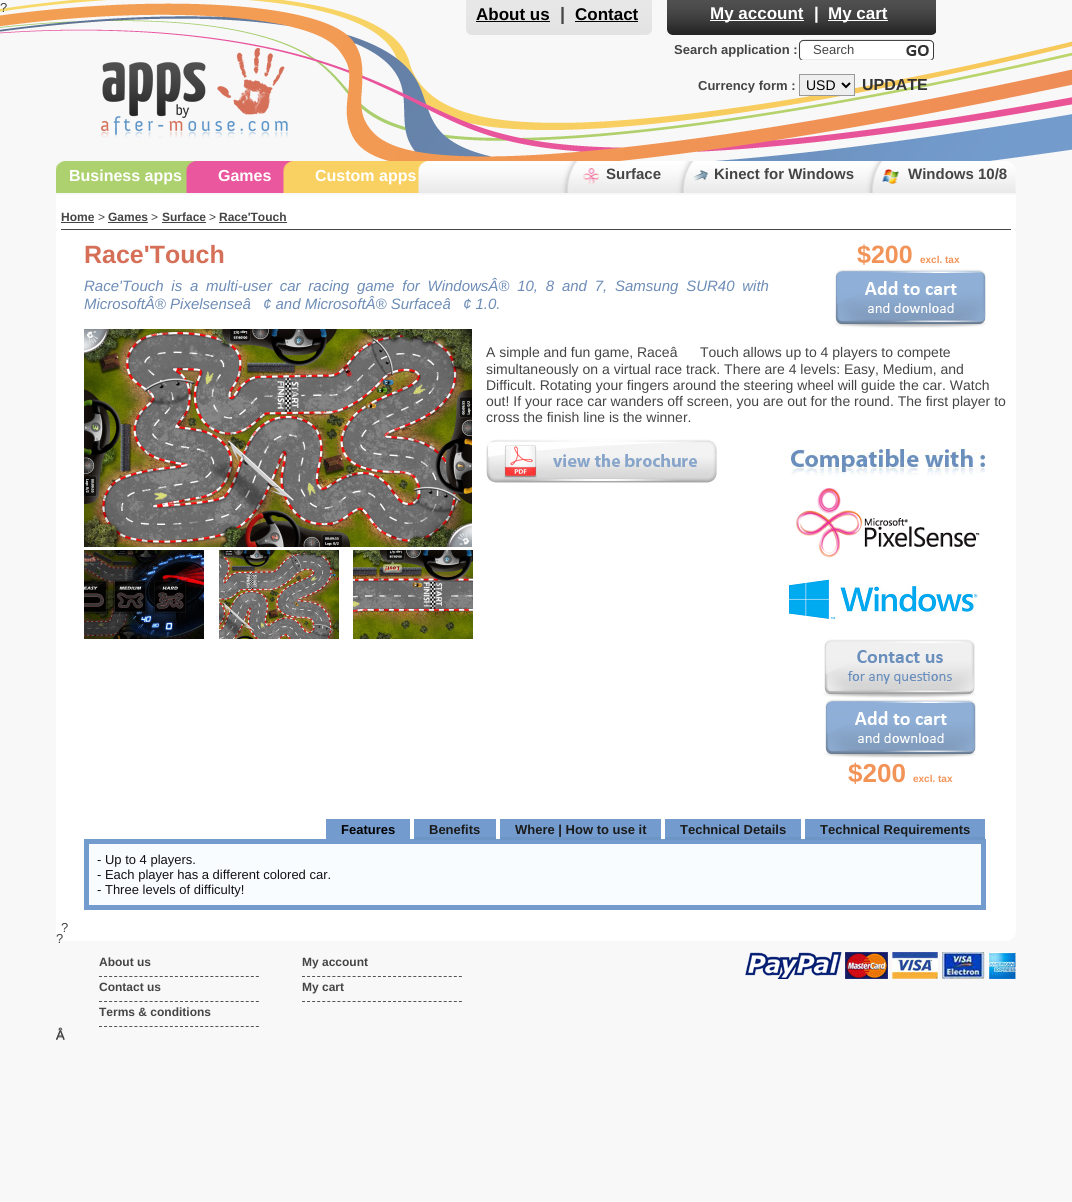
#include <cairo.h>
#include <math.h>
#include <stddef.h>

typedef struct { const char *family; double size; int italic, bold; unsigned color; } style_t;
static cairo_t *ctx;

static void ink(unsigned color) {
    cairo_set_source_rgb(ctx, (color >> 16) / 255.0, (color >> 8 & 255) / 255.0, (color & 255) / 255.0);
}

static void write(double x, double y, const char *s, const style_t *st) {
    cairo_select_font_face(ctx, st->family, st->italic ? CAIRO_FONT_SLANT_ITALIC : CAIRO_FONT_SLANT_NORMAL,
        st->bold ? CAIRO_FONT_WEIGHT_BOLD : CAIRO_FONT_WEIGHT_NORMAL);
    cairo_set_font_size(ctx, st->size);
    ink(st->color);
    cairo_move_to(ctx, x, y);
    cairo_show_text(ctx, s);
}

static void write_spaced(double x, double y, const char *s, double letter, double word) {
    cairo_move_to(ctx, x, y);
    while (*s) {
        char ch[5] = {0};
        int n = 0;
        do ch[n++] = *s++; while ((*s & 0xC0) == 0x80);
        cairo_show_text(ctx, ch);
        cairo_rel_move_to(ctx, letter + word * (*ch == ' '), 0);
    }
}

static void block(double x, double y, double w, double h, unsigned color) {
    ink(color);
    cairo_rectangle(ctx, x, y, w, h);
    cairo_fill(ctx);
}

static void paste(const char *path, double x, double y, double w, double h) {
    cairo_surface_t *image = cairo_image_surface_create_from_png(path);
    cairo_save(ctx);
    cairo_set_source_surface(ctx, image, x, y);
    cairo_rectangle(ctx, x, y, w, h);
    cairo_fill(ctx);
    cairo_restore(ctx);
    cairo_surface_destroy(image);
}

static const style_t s1 = {"Liberation Sans", 13, 0, 0, 0x454545};
static const style_t s2 = {"Liberation Sans", 17, 0, 1, 0x000000};
static const style_t s3 = {"Liberation Sans", 18, 0, 1, 0x454545};
static const style_t s4 = {"Liberation Sans", 17, 0, 1, 0xffffff};
static const style_t s5 = {"Liberation Sans", 13, 0, 1, 0x454545};
static const style_t s6 = {"Liberation Sans", 14, 0, 0, 0x000000};
static const style_t s7 = {"Liberation Sans", 16, 0, 1, 0x333333};
static const style_t s8 = {"Liberation Sans", 16, 0, 1, 0xffffff};
static const style_t s9 = {"Liberation Sans", 15, 0, 1, 0x454545};
static const style_t s10 = {"Liberation Sans", 12, 0, 1, 0x454545};
static const style_t s11 = {"Liberation Sans", 12, 0, 0, 0x454545};
static const style_t s12 = {"Liberation Sans", 25, 0, 1, 0xd56f58};
static const style_t s13 = {"Liberation Sans", 15, 1, 0, 0x6d8cb6};
static const style_t s14 = {"Liberation Sans", 25, 0, 1, 0xf29358};
static const style_t s15 = {"Liberation Sans", 10, 0, 1, 0xf29358};
static const style_t s16 = {"Liberation Sans", 14, 0, 0, 0x454545};
static const style_t s17 = {"Liberation Sans", 26, 0, 1, 0xf29358};
static const style_t s18 = {"Liberation Sans", 13, 0, 1, 0x000000};
static const style_t s19 = {"Liberation Sans", 13, 0, 1, 0x1b1b1b};
static const style_t s20 = {"Liberation Sans", 13, 0, 0, 0x111111};

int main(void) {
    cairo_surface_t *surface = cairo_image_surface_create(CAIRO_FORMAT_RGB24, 1072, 1202);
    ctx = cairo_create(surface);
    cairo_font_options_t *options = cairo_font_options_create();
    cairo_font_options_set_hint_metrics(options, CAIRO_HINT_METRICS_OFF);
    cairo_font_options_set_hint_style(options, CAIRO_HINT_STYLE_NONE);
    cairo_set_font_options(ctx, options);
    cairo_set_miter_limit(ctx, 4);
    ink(0xf8f8f8);
    cairo_paint(ctx);
    paste("pic1.png", 0, 0, 1072, 161);
    write(0, 12, "?", &s1);
    paste("pic2.png", 466, 0, 470, 35);
    write(476, 20, "About us", &s2);
    block(476, 21, 74, 1, 0x000000);
    write(560, 20, "|", &s3);
    write(575, 20, "Contact", &s2);
    block(575, 21, 63, 1, 0x000000);
    block(710, 20, 94, 1, 0xffffff);
    write(710, 19, "My account", &s4);
    write(814, 19, "|", &s4);
    block(828, 20, 60, 1, 0xffffff);
    write(828, 19, "My cart", &s4);
    paste("pic3.png", 799, 39, 135, 21);
    write(674, 54, "Search application :", &s5);
    write(813, 54, "Search", &s1);
    write(698, 90, "Currency form :", &s5);
    ink(0xefefef);
    cairo_rectangle(ctx, 799.5, 74.5, 55, 21);
    cairo_fill_preserve(ctx);
    ink(0x999999);
    cairo_set_line_width(ctx, 1);
    cairo_stroke(ctx);
    cairo_new_path(ctx);
    cairo_move_to(ctx, 842, 83);
    cairo_line_to(ctx, 846, 87);
    cairo_line_to(ctx, 850, 83);
    ink(0x000000);
    cairo_set_line_width(ctx, 2);
    cairo_stroke(ctx);
    write(806, 90, "USD", &s6);
    write(862, 90, "UPDATE", &s7);
    paste("pic4.png", 56, 161, 960, 32);
    write(69, 181, "Business apps", &s8);
    write(218, 181, "Games", &s8);
    write(315, 181, "Custom apps", &s8);
    write(606, 179, "Surface", &s9);
    write(714, 179, "Kinect for Windows", &s9);
    write(908, 179, "Windows 10/8", &s9);
    block(56, 195, 960, 736, 0xffffff);
    block(61, 229, 950, 1, 0x454545);
    write(61, 221, "Home", &s10);
    block(61, 222, 33, 1, 0x454545);
    write(98, 221, ">", &s11);
    write(108, 221, "Games", &s10);
    block(108, 222, 40, 1, 0x454545);
    write(151, 221, ">", &s11);
    write(162, 221, "Surface", &s10);
    block(162, 222, 44, 1, 0x454545);
    write(209, 221, ">", &s11);
    write(219, 221, "Race'Touch", &s10);
    block(219, 222, 68, 1, 0x454545);
    write(84, 263, "Race'Touch", &s12);
    cairo_select_font_face(ctx, "Liberation Sans", CAIRO_FONT_SLANT_ITALIC, CAIRO_FONT_WEIGHT_NORMAL);
    cairo_set_font_size(ctx, 15);
    ink(0x6d8cb6);
    write_spaced(84, 291, "Race'Touch is a multi-user car racing game for WindowsÂ® 10, 8 and 7, Samsung SUR40 with", 0, 3.6);
    write(84, 309, "MicrosoftÂ® Pixelsenseâ", &s13);
    write(263, 309, "¢ and MicrosoftÂ® Surfaceâ", &s13);
    write(463, 309, "¢ 1.0.", &s13);
    write(857, 263, "$200", &s14);
    write(920, 263, "excl. tax", &s15);
    paste("pic5.png", 834, 269, 152, 59);
    paste("pic6.png", 84, 329, 388, 218);
    paste("pic7.png", 84, 550, 120, 89);
    paste("pic8.png", 219, 550, 120, 89);
    paste("pic9.png", 353, 550, 120, 89);
    write(486, 357, "A simple and fun game, Raceâ", &s16);
    write(700, 357, "Touch allows up to 4 players to compete", &s16);
    write(486, 374, "simultaneously on a virtual race track. There are 4 levels: Easy, Medium, and", &s16);
    write(486, 390, "Difficult. Rotating your fingers around the steering wheel will guide the car. Watch", &s16);
    write(486, 406, "out! If your race car wanders off screen, you are out for the round. The first player to", &s16);
    write(486, 422, "cross the finish line is the winner.", &s16);
    paste("pic10.png", 486, 439, 231, 44);
    paste("pic11.png", 791, 449, 194, 27);
    paste("pic12.png", 796, 488, 184, 70);
    paste("pic13.png", 787, 579, 196, 41);
    paste("pic14.png", 823, 639, 152, 59);
    paste("pic5.png", 824, 699, 152, 59);
    write(848, 782, "$200", &s17);
    write(913, 782, "excl. tax", &s15);
    block(326, 819, 84, 20, 0x739bcd);
    write(341, 834, "Features", &s18);
    block(414, 819, 82, 18, 0x739bcd);
    block(84, 839, 902, 71, 0x739bcd);
    block(414, 837, 82, 3, 0x6d95c6);
    write(429, 834, "Benefits", &s19);
    block(500, 819, 161, 18, 0x739bcd);
    block(500, 837, 161, 3, 0x6d95c6);
    write(515, 834, "Where | How to use it", &s19);
    block(665, 819, 136, 18, 0x739bcd);
    block(665, 837, 136, 3, 0x6d95c6);
    write(680, 834, "Technical Details", &s19);
    block(805, 819, 180, 18, 0x739bcd);
    block(805, 837, 180, 3, 0x6d95c6);
    write(820, 834, "Technical Requirements", &s19);
    block(89, 844, 892, 61, 0xf9fcff);
    write(97, 864, "- Up to 4 players.", &s20);
    write(97, 879, "- Each player has a different colored car.", &s20);
    write(97, 894, "- Three levels of difficulty!", &s20);
    paste("pic15.png", 56, 931, 960, 10);
    write(61, 932, "?", &s1);
    write(56, 943, "?", &s1);
    cairo_new_path(ctx);
    cairo_move_to(ctx, 99, 976.5);
    cairo_line_to(ctx, 259, 976.5);
    ink(0x545454);
    cairo_set_line_width(ctx, 1);
    cairo_set_dash(ctx, (double[]){3, 2.06}, 2, 0);
    cairo_stroke(ctx);
    write(99, 966, "About us", &s10);
    cairo_new_path(ctx);
    cairo_move_to(ctx, 99, 1001.5);
    cairo_line_to(ctx, 259, 1001.5);
    ink(0x545454);
    cairo_stroke(ctx);
    write(99, 991, "Contact us", &s10);
    cairo_new_path(ctx);
    cairo_move_to(ctx, 99, 1026.5);
    cairo_line_to(ctx, 259, 1026.5);
    ink(0x545454);
    cairo_stroke(ctx);
    write(99, 1016, "Terms & conditions", &s10);
    cairo_new_path(ctx);
    cairo_move_to(ctx, 302, 976.5);
    cairo_line_to(ctx, 462, 976.5);
    ink(0x545454);
    cairo_stroke(ctx);
    write(302, 966, "My account", &s10);
    cairo_new_path(ctx);
    cairo_move_to(ctx, 302, 1001.5);
    cairo_line_to(ctx, 462, 1001.5);
    ink(0x545454);
    cairo_stroke(ctx);
    write(302, 991, "My cart", &s10);
    paste("pic16.png", 745, 952, 271, 27);
    write(56, 1039, "Â", &s1);
    write(56, 1040, "Â", &s1);
    cairo_surface_write_to_png(surface, "screenshot.png");
    cairo_font_options_destroy(options);
    cairo_destroy(ctx);
    cairo_surface_destroy(surface);
    return 0;
}
